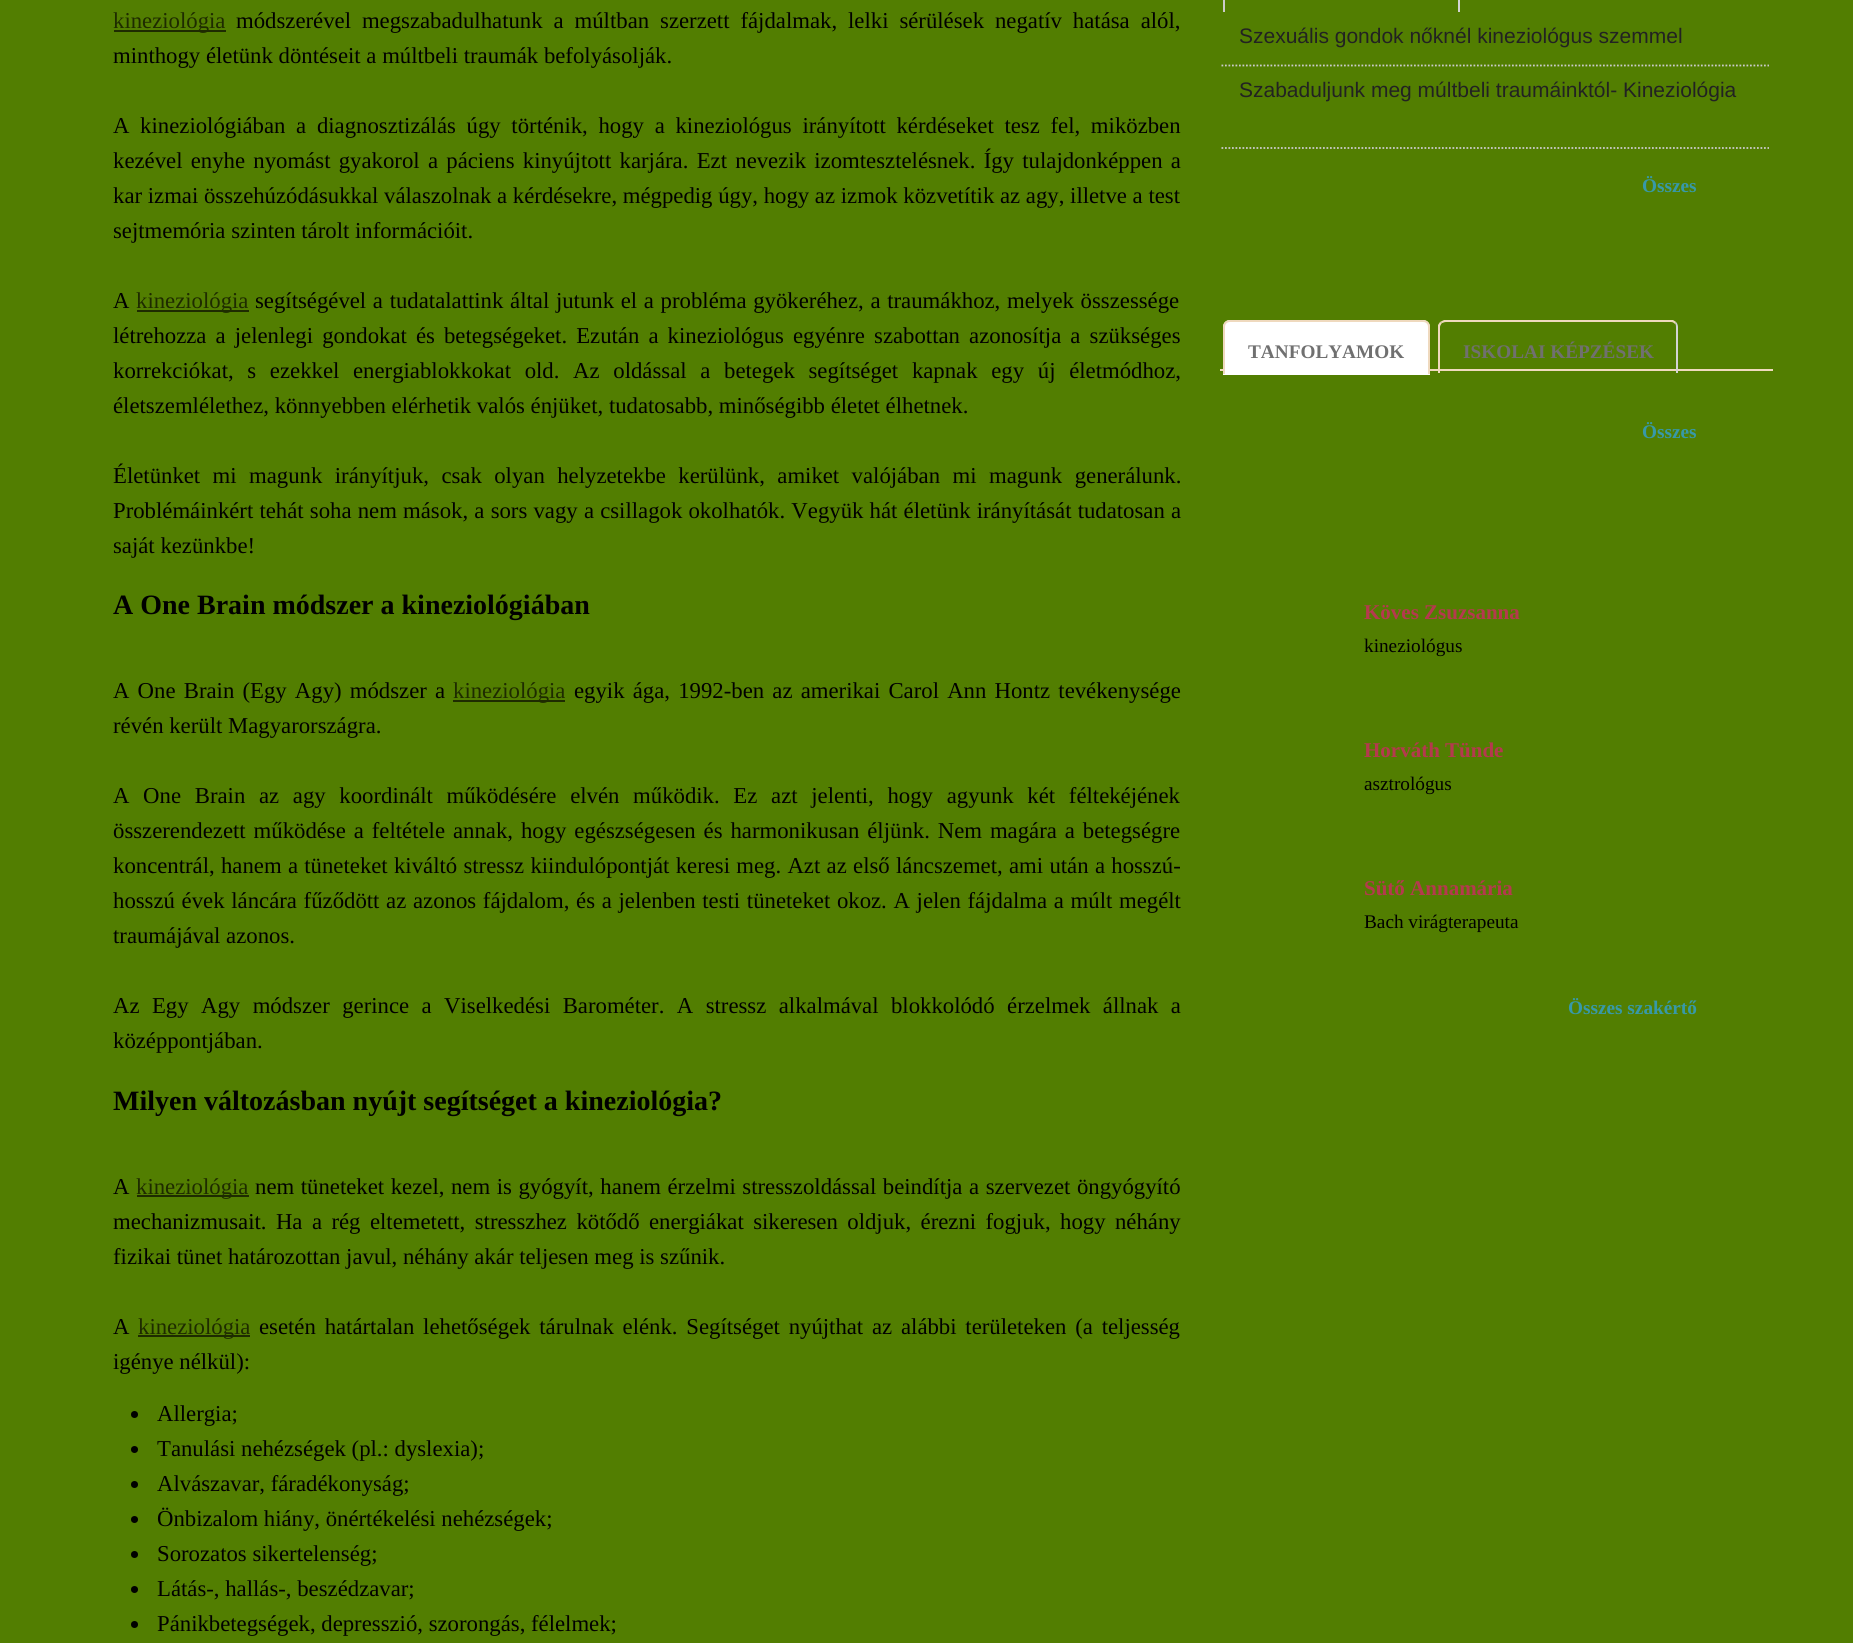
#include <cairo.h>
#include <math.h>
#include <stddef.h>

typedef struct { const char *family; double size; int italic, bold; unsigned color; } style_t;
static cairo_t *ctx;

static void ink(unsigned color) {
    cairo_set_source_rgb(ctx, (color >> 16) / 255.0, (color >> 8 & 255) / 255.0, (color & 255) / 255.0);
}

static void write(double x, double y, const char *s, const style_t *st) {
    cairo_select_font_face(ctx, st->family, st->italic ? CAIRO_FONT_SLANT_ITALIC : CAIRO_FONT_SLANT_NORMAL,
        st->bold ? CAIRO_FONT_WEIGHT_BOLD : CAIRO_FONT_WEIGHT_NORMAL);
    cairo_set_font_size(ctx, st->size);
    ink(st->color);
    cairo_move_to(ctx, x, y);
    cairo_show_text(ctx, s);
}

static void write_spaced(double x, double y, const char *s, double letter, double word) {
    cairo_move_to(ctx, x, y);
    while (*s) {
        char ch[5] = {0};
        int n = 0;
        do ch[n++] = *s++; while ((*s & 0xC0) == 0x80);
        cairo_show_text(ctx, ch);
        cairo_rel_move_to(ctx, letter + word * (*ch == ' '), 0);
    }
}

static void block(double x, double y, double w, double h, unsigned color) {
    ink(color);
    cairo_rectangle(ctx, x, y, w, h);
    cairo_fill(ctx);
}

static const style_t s1 = {"Liberation Serif", 22.75, 0, 0, 0x1e2b00};
static const style_t s2 = {"Liberation Serif", 22.75, 0, 0, 0x000000};
static const style_t s3 = {"Liberation Serif", 28, 0, 1, 0x000000};
static const style_t s4 = {"Liberation Sans", 21, 0, 0, 0x222222};
static const style_t s5 = {"Liberation Serif", 19.25, 0, 1, 0x3799a9};
static const style_t s6 = {"Liberation Serif", 19.25, 0, 1, 0x707070};
static const style_t s7 = {"Liberation Serif", 21, 0, 1, 0xb5394e};
static const style_t s8 = {"Liberation Serif", 19.25, 0, 0, 0x000000};

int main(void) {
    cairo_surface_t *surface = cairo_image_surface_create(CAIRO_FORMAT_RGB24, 1853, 1643);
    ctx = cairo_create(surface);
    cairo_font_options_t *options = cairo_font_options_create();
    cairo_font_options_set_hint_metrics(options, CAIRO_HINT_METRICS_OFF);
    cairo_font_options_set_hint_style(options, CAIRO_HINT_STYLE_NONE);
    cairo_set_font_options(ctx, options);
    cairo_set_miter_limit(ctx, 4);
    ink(0x527e01);
    cairo_paint(ctx);
    block(114, 30, 112, 2, 0x1e2b00);
    write(113, 28, "kineziológia", &s1);
    ink(0x000000);
    write_spaced(236, 28, "módszerével megszabadulhatunk a múltban szerzett fájdalmak, lelki sérülések negatív hatása alól,", 0, 5.25);
    write(113, 63, "minthogy életünk döntéseit a múltbeli traumák befolyásolják.", &s2);
    write_spaced(113, 133, "A kineziológiában a diagnosztizálás úgy történik, hogy a kineziológus irányított kérdéseket tesz fel, miközben", 0, 5);
    write_spaced(113, 168, "kezével enyhe nyomást gyakorol a páciens kinyújtott karjára. Ezt nevezik izomtesztelésnek. Így tulajdonképpen a", 0, 2.6);
    write(113, 203, "kar izmai összehúzódásukkal válaszolnak a kérdésekre, mégpedig úgy, hogy az izmok közvetítik az agy, illetve a test", &s2);
    write(113, 238, "sejtmemória szinten tárolt információit.", &s2);
    write(113, 308, "A", &s2);
    block(137, 310, 112, 2, 0x1e2b00);
    write(136, 308, "kineziológia", &s1);
    ink(0x000000);
    write_spaced(255, 308, "segítségével a tudatalattink által jutunk el a probléma gyökeréhez, a traumákhoz, melyek összessége", 0, 1);
    write_spaced(113, 343, "létrehozza a jelenlegi gondokat és betegségeket. Ezután a kineziológus egyénre szabottan azonosítja a szükséges", 0, 3.4);
    write_spaced(113, 378, "korrekciókat, s ezekkel energiablokkokat old. Az oldással a betegek segítséget kapnak egy új életmódhoz,", 0, 8);
    write(113, 413, "életszemlélethez, könnyebben elérhetik valós énjüket, tudatosabb, minőségibb életet élhetnek.", &s2);
    write_spaced(113, 483, "Életünket mi magunk irányítjuk, csak olyan helyzetekbe kerülünk, amiket valójában mi magunk generálunk.", 0, 6.75);
    write_spaced(113, 518, "Problémáinkért tehát soha nem mások, a sors vagy a csillagok okolhatók. Vegyük hát életünk irányítását tudatosan a", 0, 0.5);
    write(113, 553, "saját kezünkbe!", &s2);
    write(113, 614, "A One Brain módszer a kineziológiában", &s3);
    cairo_select_font_face(ctx, "Liberation Serif", CAIRO_FONT_SLANT_NORMAL, CAIRO_FONT_WEIGHT_NORMAL);
    cairo_set_font_size(ctx, 22.75);
    write_spaced(113, 698, "A One Brain (Egy Agy) módszer a", 0, 2.5);
    block(453, 700, 112, 2, 0x1e2b00);
    write(453, 698, "kineziológia", &s1);
    ink(0x000000);
    write_spaced(574, 698, "egyik ága, 1992-ben az amerikai Carol Ann Hontz tevékenysége", 0, 2.5);
    write(113, 733, "révén került Magyarországra.", &s2);
    write_spaced(113, 803, "A One Brain az agy koordinált működésére elvén működik. Ez azt jelenti, hogy agyunk két féltekéjének", 0, 8);
    write_spaced(113, 838, "összerendezett működése a feltétele annak, hogy egészségesen és harmonikusan éljünk. Nem magára a betegségre", 0, 2.25);
    write_spaced(113, 873, "koncentrál, hanem a tüneteket kiváltó stressz kiindulópontját keresi meg. Azt az első láncszemet, ami után a hosszú-", 0, 0.6);
    write_spaced(113, 908, "hosszú évek láncára fűződött az azonos fájdalom, és a jelenben testi tüneteket okoz. A jelen fájdalma a múlt megélt", 0, 1);
    write(113, 943, "traumájával azonos.", &s2);
    write_spaced(113, 1013, "Az Egy Agy módszer gerince a Viselkedési Barométer. A stressz alkalmával blokkolódó érzelmek állnak a", 0, 6.75);
    write(113, 1048, "középpontjában.", &s2);
    write(113, 1110, "Milyen változásban nyújt segítséget a kineziológia?", &s3);
    write(113, 1194, "A", &s2);
    block(137, 1195, 112, 2, 0x1e2b00);
    write(136, 1194, "kineziológia", &s1);
    ink(0x000000);
    write_spaced(255, 1194, "nem tüneteket kezel, nem is gyógyít, hanem érzelmi stresszoldással beindítja a szervezet öngyógyító", 0, 0.9);
    write_spaced(113, 1229, "mechanizmusait. Ha a rég eltemetett, stresszhez kötődő energiákat sikeresen oldjuk, érezni fogjuk, hogy néhány", 0, 3.75);
    write(113, 1264, "fizikai tünet határozottan javul, néhány akár teljesen meg is szűnik.", &s2);
    write(113, 1334, "A", &s2);
    block(138, 1335, 112, 2, 0x1e2b00);
    write(138, 1334, "kineziológia", &s1);
    ink(0x000000);
    write_spaced(259, 1334, "esetén határtalan lehetőségek tárulnak elénk. Segítséget nyújthat az alábbi területeken (a teljesség", 0, 3.1);
    write(113, 1369, "igénye nélkül):", &s2);
    cairo_new_path(ctx);
    cairo_arc(ctx, 134.5, 1414.5, 3.5, 0, 2 * M_PI);
    cairo_fill(ctx);
    write(157, 1421, "Allergia;", &s2);
    cairo_new_path(ctx);
    cairo_arc(ctx, 134.5, 1449.5, 3.5, 0, 2 * M_PI);
    cairo_fill(ctx);
    write(157, 1456, "Tanulási nehézségek (pl.: dyslexia);", &s2);
    cairo_new_path(ctx);
    cairo_arc(ctx, 134.5, 1484.5, 3.5, 0, 2 * M_PI);
    cairo_fill(ctx);
    write(157, 1491, "Alvászavar, fáradékonyság;", &s2);
    cairo_new_path(ctx);
    cairo_arc(ctx, 134.5, 1519.5, 3.5, 0, 2 * M_PI);
    cairo_fill(ctx);
    write(157, 1526, "Önbizalom hiány, önértékelési nehézségek;", &s2);
    cairo_new_path(ctx);
    cairo_arc(ctx, 134.5, 1554.5, 3.5, 0, 2 * M_PI);
    cairo_fill(ctx);
    write(157, 1561, "Sorozatos sikertelenség;", &s2);
    cairo_new_path(ctx);
    cairo_arc(ctx, 134.5, 1589.5, 3.5, 0, 2 * M_PI);
    cairo_fill(ctx);
    write(157, 1596, "Látás-, hallás-, beszédzavar;", &s2);
    cairo_new_path(ctx);
    cairo_arc(ctx, 134.5, 1624.5, 3.5, 0, 2 * M_PI);
    cairo_fill(ctx);
    write(157, 1631, "Pánikbetegségek, depresszió, szorongás, félelmek;", &s2);
    ink(0xd3d3d3);
    cairo_new_path(ctx);
    cairo_move_to(ctx, 1457, -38);
    cairo_line_to(ctx, 1460, -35);
    cairo_line_to(ctx, 1460, 12);
    cairo_line_to(ctx, 1458, 12);
    cairo_line_to(ctx, 1458, -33);
    cairo_curve_to(ctx, 1458, -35, 1457, -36, 1456, -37);
    cairo_close_path(ctx);
    cairo_fill(ctx);
    ink(0xcccbcb);
    cairo_new_path(ctx);
    cairo_move_to(ctx, 1225, -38);
    cairo_line_to(ctx, 1227, -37);
    cairo_curve_to(ctx, 1226, -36, 1225, -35, 1225, -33);
    cairo_line_to(ctx, 1225, 12);
    cairo_line_to(ctx, 1223, 12);
    cairo_line_to(ctx, 1223, -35);
    cairo_close_path(ctx);
    cairo_fill(ctx);
    cairo_new_path(ctx);
    cairo_move_to(ctx, 1221.5, 65.5);
    cairo_line_to(ctx, 1769, 65.5);
    ink(0xcbcbcb);
    cairo_set_line_width(ctx, 1.8);
    cairo_set_dash(ctx, (double[]){1.75, 1.75}, 2, 0);
    cairo_stroke(ctx);
    write(1239, 43, "Szexuális gondok nőknél kineziológus szemmel", &s4);
    cairo_new_path(ctx);
    cairo_move_to(ctx, 1221.5, 148);
    cairo_line_to(ctx, 1769, 148);
    ink(0xcbcbcb);
    cairo_stroke(ctx);
    write(1239, 97, "Szabaduljunk meg múltbeli traumáinktól- Kineziológia", &s4);
    write(1642, 192, "Összes", &s5);
    block(1220, 369, 553, 2, 0xefd9be);
    ink(0xffffff);
    cairo_new_path(ctx);
    cairo_move_to(ctx, 1230, 320);
    cairo_line_to(ctx, 1423, 320);
    cairo_curve_to(ctx, 1427, 320, 1430, 323, 1430, 327);
    cairo_line_to(ctx, 1430, 375);
    cairo_line_to(ctx, 1223, 375);
    cairo_line_to(ctx, 1223, 327);
    cairo_curve_to(ctx, 1223, 323, 1226, 320, 1230, 320);
    cairo_close_path(ctx);
    cairo_fill(ctx);
    ink(0xefd9be);
    cairo_set_fill_rule(ctx, CAIRO_FILL_RULE_EVEN_ODD);
    cairo_new_path(ctx);
    cairo_move_to(ctx, 1230, 320);
    cairo_line_to(ctx, 1423, 320);
    cairo_curve_to(ctx, 1427, 320, 1430, 323, 1430, 327);
    cairo_line_to(ctx, 1430, 374);
    cairo_line_to(ctx, 1223, 374);
    cairo_line_to(ctx, 1223, 327);
    cairo_curve_to(ctx, 1223, 323, 1226, 320, 1230, 320);
    cairo_close_path(ctx);
    cairo_move_to(ctx, 1230, 322);
    cairo_line_to(ctx, 1423, 322);
    cairo_curve_to(ctx, 1426, 322, 1428, 324, 1428, 327);
    cairo_line_to(ctx, 1428, 374);
    cairo_line_to(ctx, 1225, 374);
    cairo_line_to(ctx, 1225, 327);
    cairo_curve_to(ctx, 1225, 324, 1227, 322, 1230, 322);
    cairo_close_path(ctx);
    cairo_fill(ctx);
    write(1248, 358, "TANFOLYAMOK", &s6);
    ink(0xefd9be);
    cairo_set_fill_rule(ctx, CAIRO_FILL_RULE_WINDING);
    cairo_new_path(ctx);
    cairo_move_to(ctx, 1446, 322);
    cairo_curve_to(ctx, 1444, 322, 1443, 323, 1442, 323);
    cairo_line_to(ctx, 1440, 322);
    cairo_line_to(ctx, 1444, 320);
    cairo_line_to(ctx, 1673, 320);
    cairo_line_to(ctx, 1676, 322);
    cairo_line_to(ctx, 1675, 324);
    cairo_curve_to(ctx, 1674, 323, 1673, 322, 1671, 322);
    cairo_close_path(ctx);
    cairo_fill(ctx);
    ink(0xd3d3d3);
    cairo_new_path(ctx);
    cairo_move_to(ctx, 1676, 373);
    cairo_line_to(ctx, 1676, 327);
    cairo_curve_to(ctx, 1676, 326, 1676, 324, 1675, 324);
    cairo_line_to(ctx, 1676, 322);
    cairo_curve_to(ctx, 1677, 323, 1678, 325, 1678, 327);
    cairo_line_to(ctx, 1678, 373);
    cairo_close_path(ctx);
    cairo_fill(ctx);
    ink(0xefd9be);
    cairo_new_path(ctx);
    cairo_move_to(ctx, 1438, 373);
    cairo_line_to(ctx, 1438, 325);
    cairo_line_to(ctx, 1440, 322);
    cairo_line_to(ctx, 1442, 323);
    cairo_curve_to(ctx, 1441, 324, 1440, 326, 1440, 327);
    cairo_line_to(ctx, 1440, 373);
    cairo_close_path(ctx);
    cairo_fill(ctx);
    write(1463, 358, "ISKOLAI KÉPZÉSEK", &s6);
    write(1642, 438, "Összes", &s5);
    write(1364, 619, "Köves Zsuzsanna", &s7);
    write(1364, 652, "kineziológus", &s8);
    write(1364, 757, "Horváth Tünde", &s7);
    write(1364, 790, "asztrológus", &s8);
    write(1364, 895, "Sütő Annamária", &s7);
    write(1364, 928, "Bach virágterapeuta", &s8);
    write(1568, 1014, "Összes szakértő", &s5);
    cairo_surface_write_to_png(surface, "screenshot.png");
    cairo_font_options_destroy(options);
    cairo_destroy(ctx);
    cairo_surface_destroy(surface);
    return 0;
}
